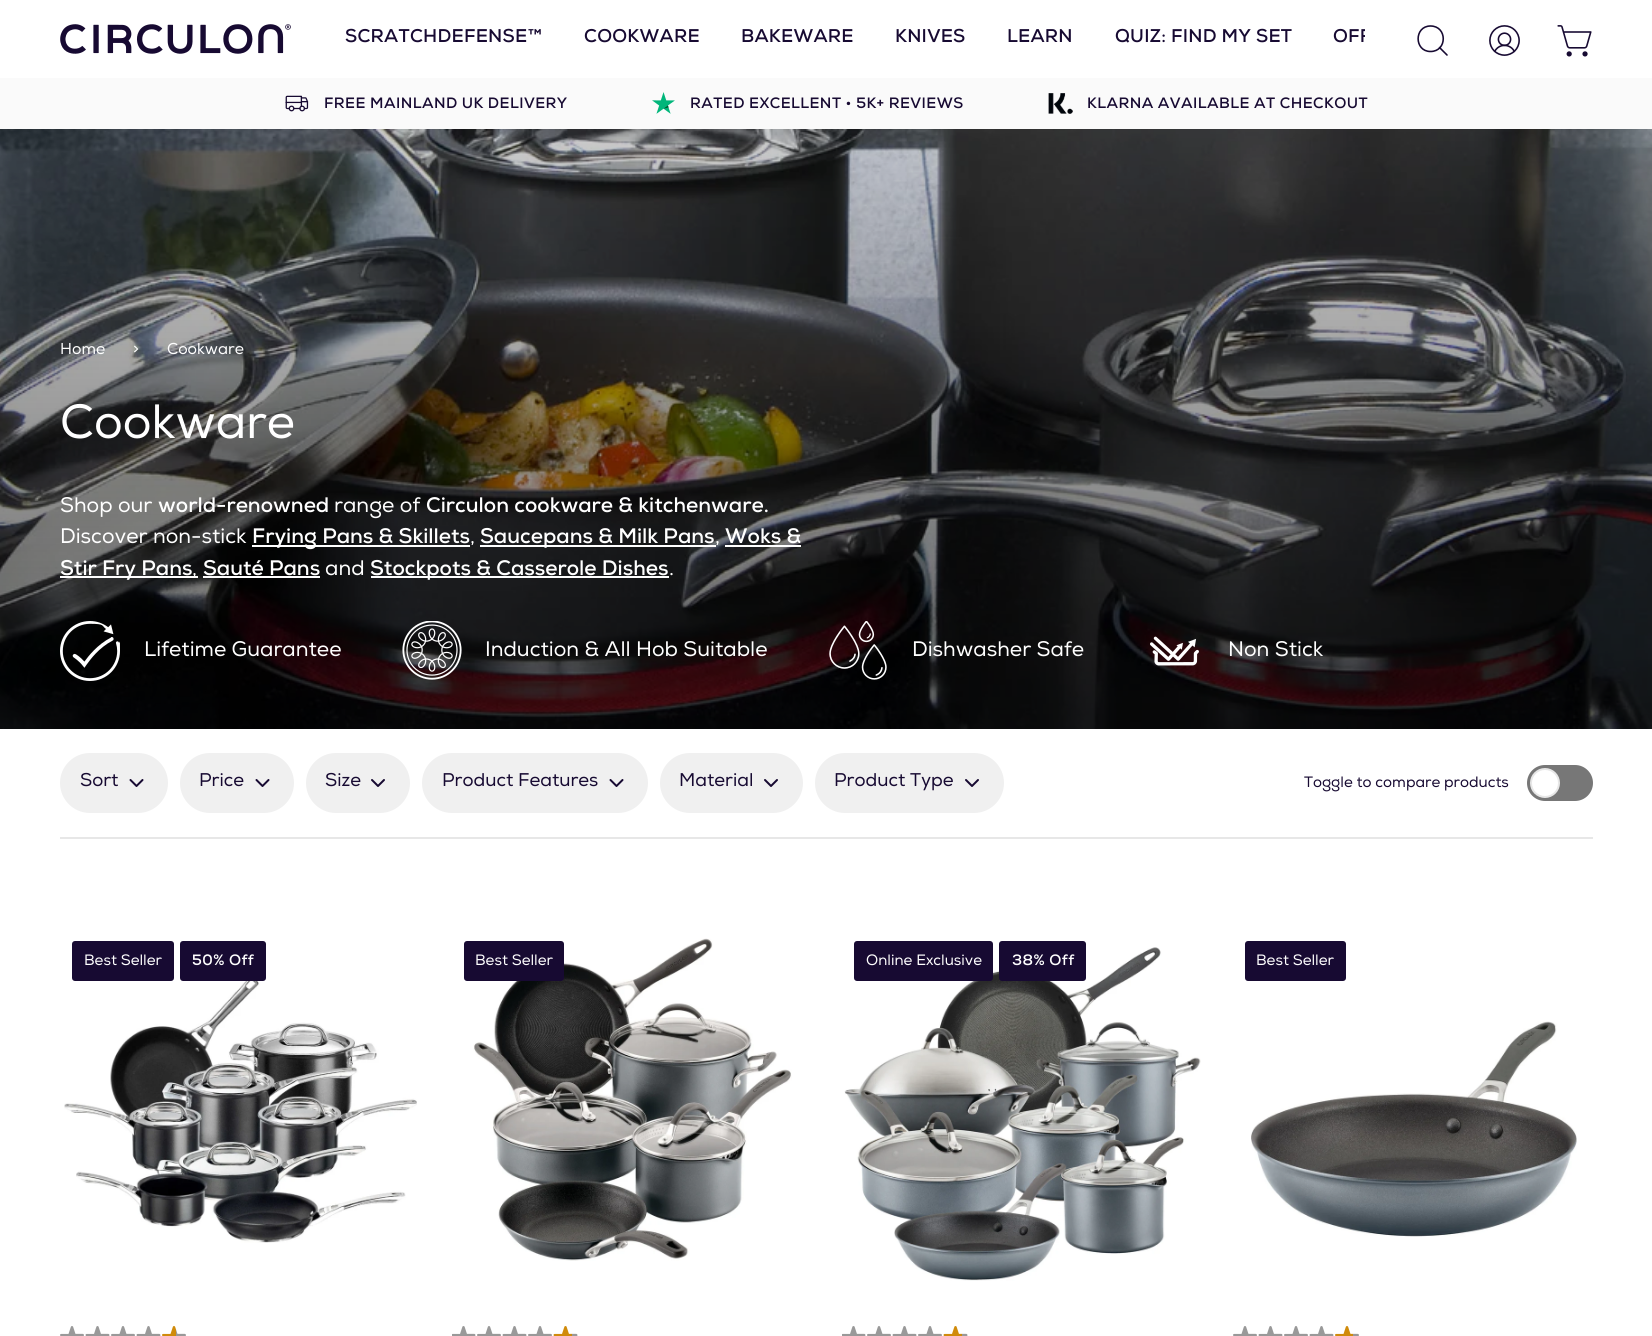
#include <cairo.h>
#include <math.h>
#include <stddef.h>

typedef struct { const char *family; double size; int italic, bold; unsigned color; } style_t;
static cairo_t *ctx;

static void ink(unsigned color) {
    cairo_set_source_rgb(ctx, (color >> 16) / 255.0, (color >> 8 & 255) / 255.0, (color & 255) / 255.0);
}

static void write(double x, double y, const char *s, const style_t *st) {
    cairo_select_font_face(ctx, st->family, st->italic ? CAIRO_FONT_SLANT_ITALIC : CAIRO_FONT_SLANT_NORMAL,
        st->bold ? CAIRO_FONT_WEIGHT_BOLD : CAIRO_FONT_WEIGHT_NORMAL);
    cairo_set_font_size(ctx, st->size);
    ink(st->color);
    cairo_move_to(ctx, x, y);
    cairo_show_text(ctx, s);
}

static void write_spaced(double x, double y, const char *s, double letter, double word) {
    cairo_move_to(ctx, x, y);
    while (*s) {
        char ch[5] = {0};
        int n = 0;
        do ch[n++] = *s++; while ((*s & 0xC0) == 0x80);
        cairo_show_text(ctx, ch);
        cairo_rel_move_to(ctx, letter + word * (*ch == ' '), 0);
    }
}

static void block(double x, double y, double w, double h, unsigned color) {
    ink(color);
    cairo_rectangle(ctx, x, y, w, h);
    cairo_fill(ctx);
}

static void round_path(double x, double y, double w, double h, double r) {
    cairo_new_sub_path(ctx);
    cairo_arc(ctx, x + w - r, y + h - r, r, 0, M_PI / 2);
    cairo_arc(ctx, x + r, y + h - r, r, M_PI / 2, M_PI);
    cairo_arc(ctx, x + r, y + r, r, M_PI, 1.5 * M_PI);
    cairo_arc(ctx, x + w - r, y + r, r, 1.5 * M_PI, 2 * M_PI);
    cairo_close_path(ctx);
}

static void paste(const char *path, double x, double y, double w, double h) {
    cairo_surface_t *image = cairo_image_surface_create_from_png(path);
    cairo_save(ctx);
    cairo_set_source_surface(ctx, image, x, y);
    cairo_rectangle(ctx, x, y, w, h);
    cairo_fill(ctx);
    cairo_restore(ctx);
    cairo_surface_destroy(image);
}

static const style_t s1 = {"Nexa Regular", 15.75, 0, 0, 0xffffff};
static const style_t s2 = {"Nexa Regular", 48, 0, 0, 0xffffff};
static const style_t s3 = {"Nexa Regular", 21, 0, 0, 0xffffff};
static const style_t s4 = {"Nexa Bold", 21, 0, 1, 0xffffff};
static const style_t s5 = {"Nexa Regular", 18.4, 0, 0, 0x170a32};
static const style_t s6 = {"Nexa Regular", 15, 0, 0, 0x170a32};
static const style_t s7 = {"Nexa Regular", 15, 0, 0, 0xffffff};

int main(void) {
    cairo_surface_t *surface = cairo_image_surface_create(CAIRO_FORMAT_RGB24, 1652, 1336);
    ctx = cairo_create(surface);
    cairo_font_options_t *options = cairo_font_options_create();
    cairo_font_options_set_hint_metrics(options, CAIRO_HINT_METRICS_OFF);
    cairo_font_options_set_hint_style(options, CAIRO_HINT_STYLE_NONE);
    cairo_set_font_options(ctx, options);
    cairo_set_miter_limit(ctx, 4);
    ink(0xffffff);
    cairo_paint(ctx);
    paste("pic1.png", 60, 24, 231, 30);
    cairo_select_font_face(ctx, "Nexa Bold", CAIRO_FONT_SLANT_NORMAL, CAIRO_FONT_WEIGHT_BOLD);
    cairo_set_font_size(ctx, 18.4);
    ink(0x170a32);
    write_spaced(345, 42, "SCRATCHDEFENSE™", 0.25, 0);
    write_spaced(584, 42, "COOKWARE", 0.25, 0);
    write_spaced(741, 42, "BAKEWARE", 0.25, 0);
    write_spaced(895, 42, "KNIVES", 0.25, 0);
    write_spaced(1007, 42, "LEARN", 0.25, 0);
    write_spaced(1115, 42, "QUIZ: FIND MY SET", 0.25, 0);
    cairo_save(ctx);
    cairo_rectangle(ctx, 291, 0, 1074, 78);
    cairo_clip(ctx);
    write_spaced(1333, 42, "OFF", 0.25, 0);
    cairo_restore(ctx);
    cairo_new_path(ctx);
    cairo_move_to(ctx, 1439.5, 47.5);
    cairo_line_to(ctx, 1447, 55);
    cairo_move_to(ctx, 1430.5, 51.5);
    cairo_curve_to(ctx, 1447.5, 51.5, 1447.5, 26, 1430.5, 26);
    cairo_curve_to(ctx, 1414, 26, 1414, 51.5, 1430.5, 51.5);
    cairo_close_path(ctx);
    cairo_set_line_width(ctx, 1.6);
    cairo_set_line_cap(ctx, CAIRO_LINE_CAP_ROUND);
    cairo_set_line_join(ctx, CAIRO_LINE_JOIN_ROUND);
    cairo_stroke(ctx);
    paste("pic2.png", 1489, 25, 31, 31);
    paste("pic3.png", 1557, 25, 35, 32);
    block(0, 78, 1652, 51, 0xfafafa);
    paste("pic4.png", 285, 95, 24, 17);
    cairo_set_font_size(ctx, 15);
    ink(0x170a32);
    write_spaced(324, 108, "FREE MAINLAND UK DELIVERY", 0.45, 0);
    paste("pic5.png", 652, 92, 23, 22);
    write_spaced(690, 108, "RATED EXCELLENT • 5K+ REVIEWS", 0.45, 0);
    paste("pic6.png", 1048, 93, 25, 21);
    write_spaced(1087, 108, "KLARNA AVAILABLE AT CHECKOUT", 0.45, 0);
    paste("pic7.png", 0, 129, 1652, 600);
    write(60, 354, "Home", &s1);
    write(133, 354, ">", &s1);
    write(167, 354, "Cookware", &s1);
    write(60, 438, "Cookware", &s2);
    write(60, 512, "Shop our", &s3);
    write(158, 512, "world-renowned", &s4);
    write(334, 512, "range of", &s3);
    write(426, 512, "Circulon cookware & kitchenware.", &s4);
    write(60, 543, "Discover non-stick", &s3);
    block(252, 545, 218, 2, 0xffffff);
    write(252, 543, "Frying Pans & Skillets", &s4);
    write(470, 543, ",", &s3);
    block(480, 545, 236, 2, 0xffffff);
    write(480, 543, "Saucepans & Milk Pans", &s4);
    write(715, 543, ",", &s3);
    write(725, 543, "Woks &", &s4);
    block(725, 545, 76, 2, 0xffffff);
    block(60, 576, 138, 2, 0xffffff);
    write(60, 575, "Stir Fry Pans", &s4);
    write(192, 575, ",", &s3);
    write(203, 575, "Sauté Pans", &s4);
    block(203, 576, 117, 2, 0xffffff);
    write(325, 575, "and", &s3);
    block(371, 576, 298, 2, 0xffffff);
    write(370, 575, "Stockpots & Casserole Dishes", &s4);
    write(669, 575, ".", &s3);
    paste("pic8.png", 60, 621, 60, 60);
    write(144, 656, "Lifetime Guarantee", &s3);
    paste("pic9.png", 402, 621, 60, 59);
    write(485, 656, "Induction & All Hob Suitable", &s3);
    paste("pic10.png", 829, 621, 58, 59);
    write(912, 656, "Dishwasher Safe", &s3);
    paste("pic11.png", 1150, 636, 49, 30);
    write(1228, 656, "Non Stick", &s3);
    block(60, 837, 1533, 2, 0xe7e7e7);
    ink(0xf0f0f0);
    round_path(61, 754, 106, 58, 29);
    cairo_fill_preserve(ctx);
    cairo_set_line_width(ctx, 2);
    cairo_set_line_cap(ctx, CAIRO_LINE_CAP_BUTT);
    cairo_set_line_join(ctx, CAIRO_LINE_JOIN_MITER);
    cairo_stroke(ctx);
    write(80, 786, "Sort", &s5);
    cairo_new_path(ctx);
    cairo_move_to(ctx, 130.5, 780);
    cairo_line_to(ctx, 136.5, 786);
    cairo_line_to(ctx, 142.5, 780);
    cairo_set_line_cap(ctx, CAIRO_LINE_CAP_ROUND);
    cairo_set_line_join(ctx, CAIRO_LINE_JOIN_ROUND);
    cairo_stroke(ctx);
    ink(0xf0f0f0);
    round_path(181, 754, 112, 58, 29);
    cairo_fill_preserve(ctx);
    cairo_set_line_cap(ctx, CAIRO_LINE_CAP_BUTT);
    cairo_set_line_join(ctx, CAIRO_LINE_JOIN_MITER);
    cairo_stroke(ctx);
    write(199, 786, "Price", &s5);
    cairo_new_path(ctx);
    cairo_move_to(ctx, 256.5, 780);
    cairo_line_to(ctx, 262.5, 786);
    cairo_line_to(ctx, 268.5, 780);
    cairo_set_line_cap(ctx, CAIRO_LINE_CAP_ROUND);
    cairo_set_line_join(ctx, CAIRO_LINE_JOIN_ROUND);
    cairo_stroke(ctx);
    ink(0xf0f0f0);
    round_path(307, 754, 102, 58, 29);
    cairo_fill_preserve(ctx);
    cairo_set_line_cap(ctx, CAIRO_LINE_CAP_BUTT);
    cairo_set_line_join(ctx, CAIRO_LINE_JOIN_MITER);
    cairo_stroke(ctx);
    write(325, 786, "Size", &s5);
    cairo_new_path(ctx);
    cairo_move_to(ctx, 372, 780);
    cairo_line_to(ctx, 378, 786);
    cairo_line_to(ctx, 384, 780);
    cairo_set_line_cap(ctx, CAIRO_LINE_CAP_ROUND);
    cairo_set_line_join(ctx, CAIRO_LINE_JOIN_ROUND);
    cairo_stroke(ctx);
    ink(0xf0f0f0);
    round_path(423, 754, 224, 58, 29);
    cairo_fill_preserve(ctx);
    cairo_set_line_cap(ctx, CAIRO_LINE_CAP_BUTT);
    cairo_set_line_join(ctx, CAIRO_LINE_JOIN_MITER);
    cairo_stroke(ctx);
    write(442, 786, "Product Features", &s5);
    cairo_new_path(ctx);
    cairo_move_to(ctx, 610.5, 780);
    cairo_line_to(ctx, 616.5, 786);
    cairo_line_to(ctx, 622.5, 780);
    cairo_set_line_cap(ctx, CAIRO_LINE_CAP_ROUND);
    cairo_set_line_join(ctx, CAIRO_LINE_JOIN_ROUND);
    cairo_stroke(ctx);
    ink(0xf0f0f0);
    round_path(661, 754, 141, 58, 29);
    cairo_fill_preserve(ctx);
    cairo_set_line_cap(ctx, CAIRO_LINE_CAP_BUTT);
    cairo_set_line_join(ctx, CAIRO_LINE_JOIN_MITER);
    cairo_stroke(ctx);
    write(679, 786, "Material", &s5);
    cairo_new_path(ctx);
    cairo_move_to(ctx, 765, 780);
    cairo_line_to(ctx, 771, 786);
    cairo_line_to(ctx, 777, 780);
    cairo_set_line_cap(ctx, CAIRO_LINE_CAP_ROUND);
    cairo_set_line_join(ctx, CAIRO_LINE_JOIN_ROUND);
    cairo_stroke(ctx);
    ink(0xf0f0f0);
    round_path(816, 754, 187, 58, 29);
    cairo_fill_preserve(ctx);
    cairo_set_line_cap(ctx, CAIRO_LINE_CAP_BUTT);
    cairo_set_line_join(ctx, CAIRO_LINE_JOIN_MITER);
    cairo_stroke(ctx);
    write(834, 786, "Product Type", &s5);
    cairo_new_path(ctx);
    cairo_move_to(ctx, 966, 780);
    cairo_line_to(ctx, 972, 786);
    cairo_line_to(ctx, 978, 780);
    cairo_set_line_cap(ctx, CAIRO_LINE_CAP_ROUND);
    cairo_set_line_join(ctx, CAIRO_LINE_JOIN_ROUND);
    cairo_stroke(ctx);
    write(1304, 787, "Toggle to compare products", &s6);
    ink(0x777777);
    round_path(1527, 765, 66, 36, 18);
    cairo_fill(ctx);
    ink(0xffffff);
    cairo_arc(ctx, 1545, 783, 14, 0, 2 * M_PI);
    cairo_fill_preserve(ctx);
    ink(0xe7e7e7);
    cairo_set_line_cap(ctx, CAIRO_LINE_CAP_BUTT);
    cairo_set_line_join(ctx, CAIRO_LINE_JOIN_MITER);
    cairo_stroke(ctx);
    paste("pic12.png", 64, 976, 353, 267);
    ink(0x170a32);
    round_path(72, 941, 102, 40, 3);
    cairo_fill(ctx);
    write(84, 965, "Best Seller", &s7);
    ink(0x170a32);
    round_path(180, 941, 86, 40, 3);
    cairo_fill(ctx);
    cairo_select_font_face(ctx, "Nexa Bold", CAIRO_FONT_SLANT_NORMAL, CAIRO_FONT_WEIGHT_BOLD);
    ink(0xffffff);
    write_spaced(192, 965, "50% Off", 0.45, 0);
    paste("pic13.png", 60, 1326, 24, 10);
    paste("pic14.png", 85, 1326, 25, 10);
    paste("pic13.png", 111, 1326, 24, 10);
    paste("pic14.png", 136, 1326, 25, 10);
    paste("pic15.png", 162, 1326, 24, 10);
    paste("pic16.png", 473, 938, 319, 323);
    ink(0x170a32);
    round_path(464, 941, 100, 40, 3);
    cairo_fill(ctx);
    write(475, 965, "Best Seller", &s7);
    paste("pic17.png", 452, 1326, 24, 10);
    paste("pic13.png", 477, 1326, 24, 10);
    paste("pic14.png", 502, 1326, 25, 10);
    paste("pic13.png", 528, 1326, 24, 10);
    paste("pic18.png", 553, 1326, 25, 10);
    paste("pic19.png", 844, 947, 357, 334);
    ink(0x170a32);
    round_path(854, 941, 139, 40, 3);
    cairo_fill(ctx);
    write(866, 965, "Online Exclusive", &s7);
    ink(0x170a32);
    round_path(999, 941, 87, 40, 3);
    cairo_fill(ctx);
    cairo_select_font_face(ctx, "Nexa Bold", CAIRO_FONT_SLANT_NORMAL, CAIRO_FONT_WEIGHT_BOLD);
    ink(0xffffff);
    write_spaced(1012, 965, "38% Off", 0.45, 0);
    paste("pic17.png", 842, 1326, 24, 10);
    paste("pic13.png", 867, 1326, 24, 10);
    paste("pic14.png", 892, 1326, 25, 10);
    paste("pic13.png", 918, 1326, 24, 10);
    paste("pic18.png", 943, 1326, 25, 10);
    ink(0x170a32);
    round_path(1245, 941, 101, 40, 3);
    cairo_fill(ctx);
    write(1256, 965, "Best Seller", &s7);
    paste("pic20.png", 1251, 1021, 326, 216);
    paste("pic13.png", 1233, 1326, 24, 10);
    paste("pic14.png", 1258, 1326, 25, 10);
    paste("pic13.png", 1284, 1326, 24, 10);
    paste("pic14.png", 1309, 1326, 25, 10);
    paste("pic21.png", 1335, 1326, 24, 10);
    cairo_surface_write_to_png(surface, "screenshot.png");
    cairo_font_options_destroy(options);
    cairo_destroy(ctx);
    cairo_surface_destroy(surface);
    return 0;
}
